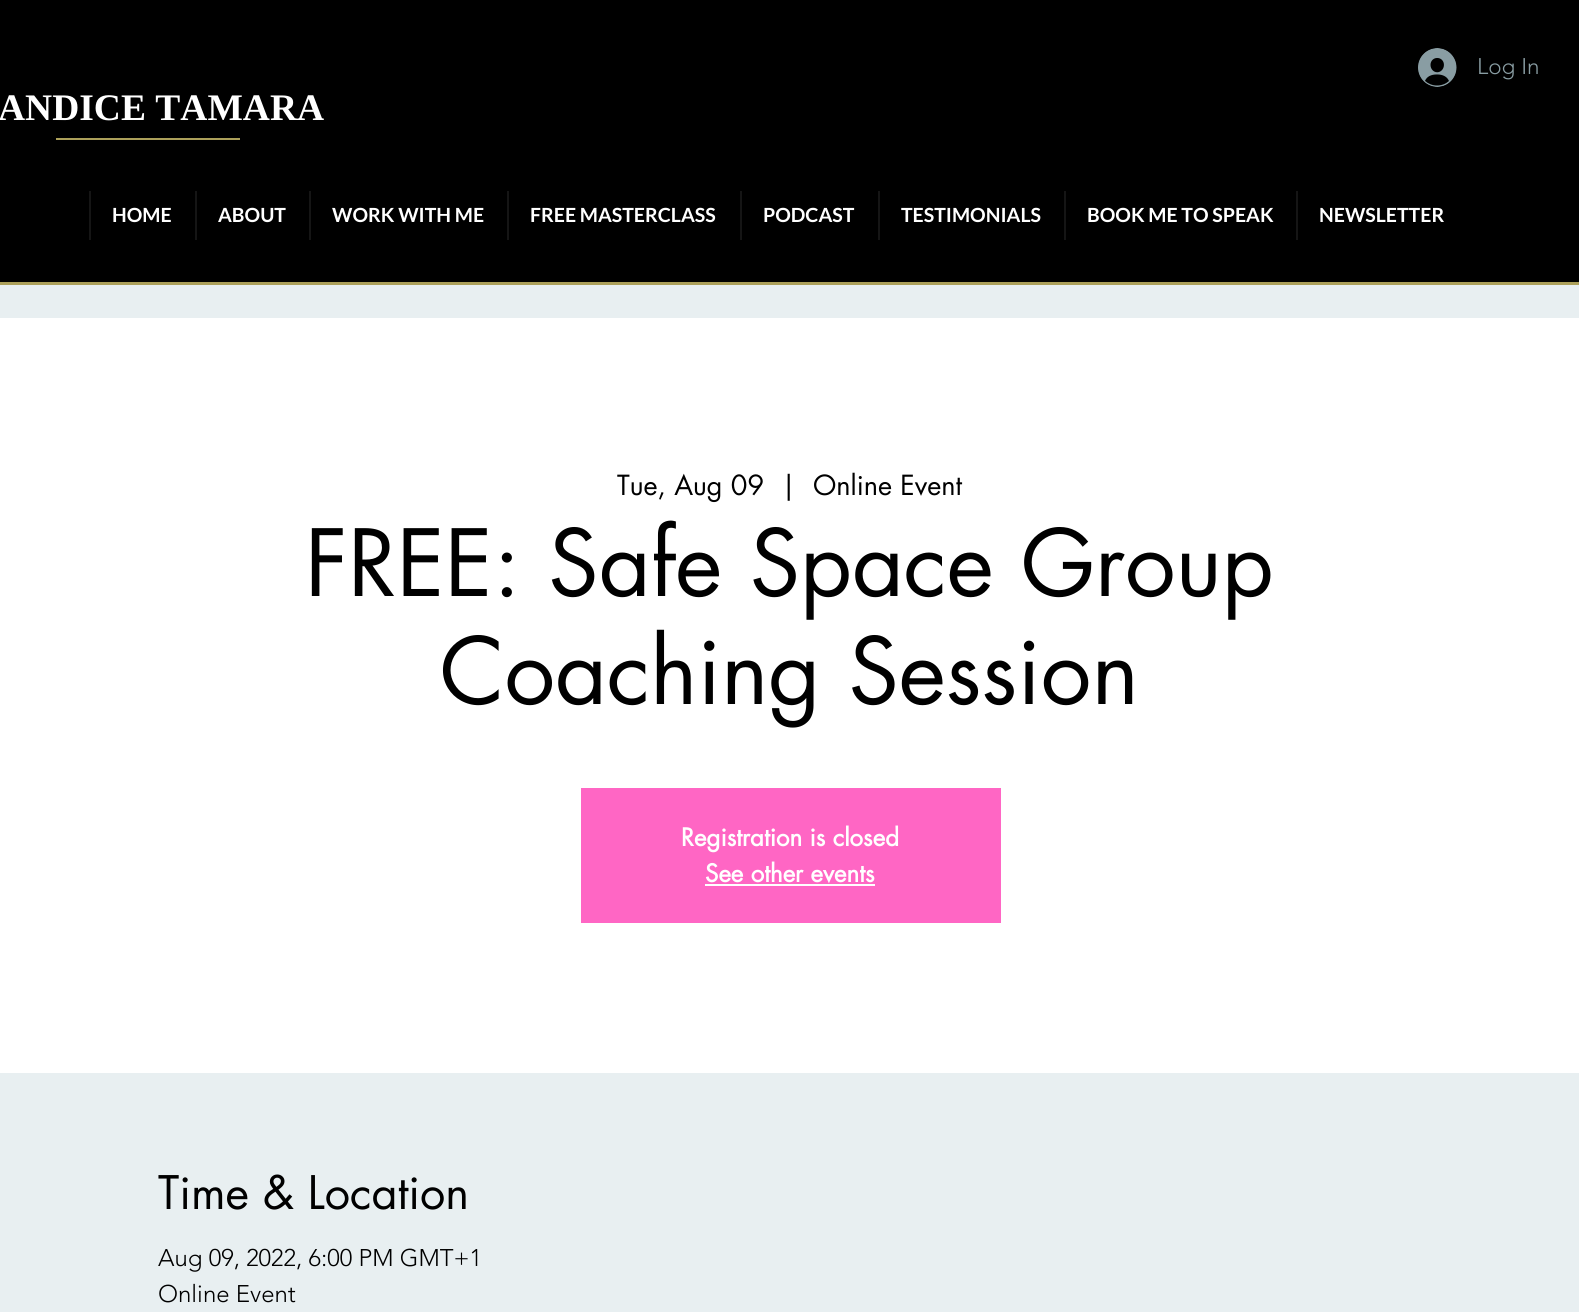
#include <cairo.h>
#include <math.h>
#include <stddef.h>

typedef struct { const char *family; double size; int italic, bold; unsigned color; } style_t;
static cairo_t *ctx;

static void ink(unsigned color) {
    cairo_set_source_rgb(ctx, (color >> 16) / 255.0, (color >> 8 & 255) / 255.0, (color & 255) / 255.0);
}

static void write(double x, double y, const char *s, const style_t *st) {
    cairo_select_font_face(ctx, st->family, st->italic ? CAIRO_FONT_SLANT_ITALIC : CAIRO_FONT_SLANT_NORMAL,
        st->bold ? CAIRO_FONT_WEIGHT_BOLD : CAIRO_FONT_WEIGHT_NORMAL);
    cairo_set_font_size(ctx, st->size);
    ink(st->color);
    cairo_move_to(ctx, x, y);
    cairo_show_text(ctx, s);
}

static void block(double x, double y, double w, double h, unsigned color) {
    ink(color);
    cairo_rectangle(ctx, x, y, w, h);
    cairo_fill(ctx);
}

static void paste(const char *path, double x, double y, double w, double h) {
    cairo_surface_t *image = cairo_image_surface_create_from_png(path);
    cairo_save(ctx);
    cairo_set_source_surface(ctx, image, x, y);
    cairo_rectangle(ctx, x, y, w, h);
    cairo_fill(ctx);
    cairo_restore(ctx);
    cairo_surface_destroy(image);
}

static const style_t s1 = {"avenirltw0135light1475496 Light", 22.5, 0, 0, 0x899da3};
static const style_t s2 = {"Liberation Serif", 37.5, 0, 1, 0xffffff};
static const style_t s3 = {"Lato", 19.5, 0, 1, 0xffffff};
static const style_t s4 = {"futura", 27, 0, 0, 0x000000};
static const style_t s5 = {"futura", 90, 0, 0, 0x000000};
static const style_t s6 = {"futura", 24, 0, 1, 0xffffff};
static const style_t s7 = {"futura", 45, 0, 0, 0x000000};
static const style_t s8 = {"avenirltw0135light1475496 Light", 24, 0, 0, 0x000000};

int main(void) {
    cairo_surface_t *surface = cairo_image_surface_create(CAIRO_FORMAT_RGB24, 1579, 1312);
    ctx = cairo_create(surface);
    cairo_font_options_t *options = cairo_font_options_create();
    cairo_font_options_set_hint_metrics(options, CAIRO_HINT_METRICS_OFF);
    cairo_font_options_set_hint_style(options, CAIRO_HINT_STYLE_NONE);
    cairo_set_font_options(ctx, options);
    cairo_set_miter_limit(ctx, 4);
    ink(0xe8eff1);
    cairo_paint(ctx);
    block(0, 282, 1579, 3, 0xaca05a);
    block(0, 0, 1579, 282, 0x000000);
    paste("pic1.png", 1418, 48, 39, 39);
    write(1477, 74, "Log In", &s1);
    write(-2, 120, "ANDICE TAMARA", &s2);
    block(56, 138, 184, 2, 0xaca05a);
    block(89, 191, 2, 49, 0x151515);
    write(112, 222, "HOME", &s3);
    block(195, 191, 2, 49, 0x151515);
    write(218, 222, "ABOUT", &s3);
    block(309, 191, 2, 49, 0x151515);
    write(332, 222, "WORK WITH ME", &s3);
    block(507, 191, 2, 49, 0x151515);
    write(530, 222, "FREE MASTERCLASS", &s3);
    block(740, 191, 2, 49, 0x151515);
    write(763, 222, "PODCAST", &s3);
    block(878, 191, 2, 49, 0x151515);
    write(901, 222, "TESTIMONIALS", &s3);
    block(1064, 191, 2, 49, 0x151515);
    write(1087, 222, "BOOK ME TO SPEAK", &s3);
    block(1296, 191, 2, 49, 0x151515);
    write(1319, 222, "NEWSLETTER", &s3);
    block(0, 318, 1579, 755, 0xffffff);
    write(617, 495, "Tue, Aug 09", &s4);
    write(781, 495, "|", &s4);
    write(813, 495, "Online Event", &s4);
    write(305, 596, "FREE: Safe Space Group", &s5);
    write(440, 704, "Coaching Session", &s5);
    block(581, 788, 420, 135, 0xff66c4);
    write(681, 846, "Registration is closed", &s6);
    write(705, 882, "See other events", &s6);
    block(705, 884, 170, 2, 0xffffff);
    write(158, 1209, "Time & Location", &s7);
    write(158, 1266, "Aug 09, 2022, 6:00 PM GMT+1", &s8);
    write(158, 1302, "Online Event", &s8);
    cairo_surface_write_to_png(surface, "screenshot.png");
    cairo_font_options_destroy(options);
    cairo_destroy(ctx);
    cairo_surface_destroy(surface);
    return 0;
}
